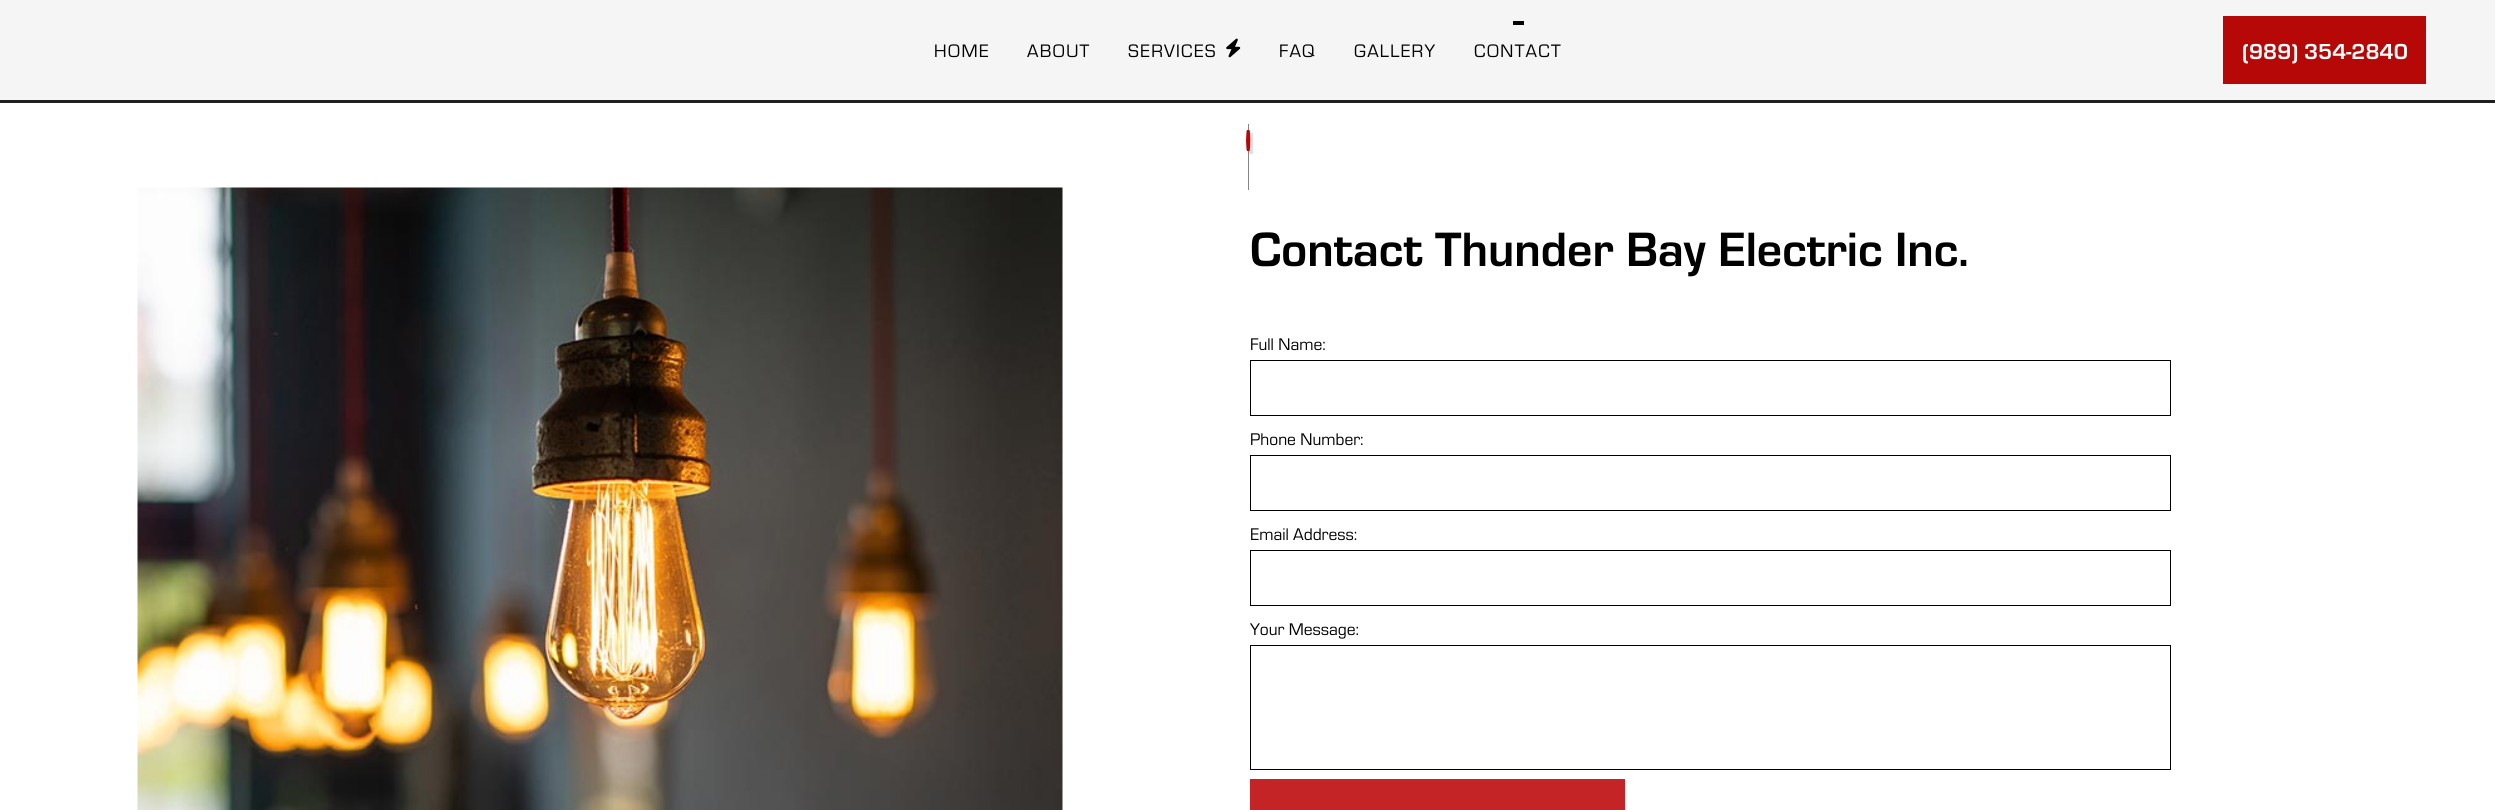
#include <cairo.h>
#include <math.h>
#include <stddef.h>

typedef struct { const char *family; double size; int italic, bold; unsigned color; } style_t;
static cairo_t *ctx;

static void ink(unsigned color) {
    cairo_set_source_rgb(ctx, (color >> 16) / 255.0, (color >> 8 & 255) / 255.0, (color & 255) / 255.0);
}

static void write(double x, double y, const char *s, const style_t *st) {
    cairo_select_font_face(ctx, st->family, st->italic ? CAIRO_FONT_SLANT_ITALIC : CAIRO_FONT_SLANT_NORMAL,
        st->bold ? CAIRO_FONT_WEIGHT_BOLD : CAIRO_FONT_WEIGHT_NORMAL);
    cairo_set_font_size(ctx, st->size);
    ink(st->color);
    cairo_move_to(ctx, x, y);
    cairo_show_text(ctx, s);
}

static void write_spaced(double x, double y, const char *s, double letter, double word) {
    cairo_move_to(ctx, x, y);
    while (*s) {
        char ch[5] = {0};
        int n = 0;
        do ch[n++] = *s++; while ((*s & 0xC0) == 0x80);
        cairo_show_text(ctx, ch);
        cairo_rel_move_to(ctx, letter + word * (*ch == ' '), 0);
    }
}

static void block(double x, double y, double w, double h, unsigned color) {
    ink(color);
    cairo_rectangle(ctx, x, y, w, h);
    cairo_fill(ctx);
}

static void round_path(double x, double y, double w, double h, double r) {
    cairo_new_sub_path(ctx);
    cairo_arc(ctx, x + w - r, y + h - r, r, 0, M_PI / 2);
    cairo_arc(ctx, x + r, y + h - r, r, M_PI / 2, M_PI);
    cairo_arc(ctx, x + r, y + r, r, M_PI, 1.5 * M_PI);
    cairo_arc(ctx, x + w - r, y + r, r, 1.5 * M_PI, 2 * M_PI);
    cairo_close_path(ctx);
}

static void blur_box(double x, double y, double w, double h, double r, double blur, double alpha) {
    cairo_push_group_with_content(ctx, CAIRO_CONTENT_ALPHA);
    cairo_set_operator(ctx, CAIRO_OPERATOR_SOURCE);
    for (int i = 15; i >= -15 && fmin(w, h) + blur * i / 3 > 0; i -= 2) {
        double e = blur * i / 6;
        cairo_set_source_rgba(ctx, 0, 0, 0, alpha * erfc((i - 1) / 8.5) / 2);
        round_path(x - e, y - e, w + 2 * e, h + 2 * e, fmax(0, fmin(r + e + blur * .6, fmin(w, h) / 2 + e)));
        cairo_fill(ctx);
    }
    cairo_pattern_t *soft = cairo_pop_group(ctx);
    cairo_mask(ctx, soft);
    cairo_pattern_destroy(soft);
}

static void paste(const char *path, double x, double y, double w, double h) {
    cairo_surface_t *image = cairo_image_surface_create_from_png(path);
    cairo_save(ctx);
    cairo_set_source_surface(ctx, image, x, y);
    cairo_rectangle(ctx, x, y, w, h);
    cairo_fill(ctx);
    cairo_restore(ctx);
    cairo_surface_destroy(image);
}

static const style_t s1 = {"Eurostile", 22.5, 0, 1, 0xffffff};
static const style_t s2 = {"Eurostile", 50, 0, 1, 0x000000};
static const style_t s3 = {"Eurostile", 17.5, 0, 0, 0x000000};

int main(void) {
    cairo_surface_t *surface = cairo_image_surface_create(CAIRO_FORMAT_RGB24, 2495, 810);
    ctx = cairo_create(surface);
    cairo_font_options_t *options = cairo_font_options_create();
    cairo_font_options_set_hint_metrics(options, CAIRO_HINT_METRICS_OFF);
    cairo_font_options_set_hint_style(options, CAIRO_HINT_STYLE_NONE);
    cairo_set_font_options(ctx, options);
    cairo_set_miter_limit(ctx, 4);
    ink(0xffffff);
    cairo_paint(ctx);
    block(0, 0, 2495, 100, 0xf5f5f5);
    block(0, 100, 2495, 3, 0x201e1f);
    cairo_select_font_face(ctx, "Eurostile", CAIRO_FONT_SLANT_NORMAL, CAIRO_FONT_WEIGHT_NORMAL);
    cairo_set_font_size(ctx, 18.75);
    ink(0x000000);
    write_spaced(934, 57, "HOME", 1.25, 0);
    write_spaced(1027, 57, "ABOUT", 1.25, 0);
    write_spaced(1128, 57, "SERVICES", 1.25, 0);
    paste("pic1.png", 1226, 38, 15, 20);
    write_spaced(1279, 57, "FAQ", 1.25, 0);
    write_spaced(1354, 57, "GALLERY", 1.25, 0);
    block(1513, 21, 11, 4, 0x000000);
    write_spaced(1474, 57, "CONTACT", 1.25, 0);
    block(2223, 16, 203, 68, 0xb60807);
    write(2242, 59, "(989) 354-2840", &s1);
    block(1248, 124, 1, 66, 0x858487);
    ink(0x000000);
    blur_box(1249, 133, 4, 21, 1, 0.5, 0.13);
    ink(0xb60807);
    cairo_new_path(ctx);
    cairo_move_to(ctx, 1247, 130);
    cairo_line_to(ctx, 1249.5, 130);
    cairo_curve_to(ctx, 1250.5, 131.5, 1250.5, 150, 1249.5, 151);
    cairo_line_to(ctx, 1247, 151);
    cairo_line_to(ctx, 1246.5, 149.5);
    cairo_line_to(ctx, 1246, 140.5);
    cairo_line_to(ctx, 1246.5, 131.5);
    cairo_close_path(ctx);
    cairo_fill(ctx);
    paste("pic2.png", 137, 187, 926, 623);
    write(1250, 266, "Contact Thunder Bay Electric Inc.", &s2);
    write(1250, 350, "Full Name:", &s3);
    cairo_rectangle(ctx, 1250.5, 360.5, 920, 55);
    cairo_set_line_width(ctx, 1);
    cairo_stroke(ctx);
    write(1250, 445, "Phone Number:", &s3);
    cairo_rectangle(ctx, 1250.5, 455.5, 920, 55);
    cairo_stroke(ctx);
    write(1250, 540, "Email Address:", &s3);
    cairo_rectangle(ctx, 1250.5, 550.5, 920, 55);
    cairo_stroke(ctx);
    write(1250, 635, "Your Message:", &s3);
    cairo_rectangle(ctx, 1250.5, 645.5, 920, 124);
    cairo_stroke(ctx);
    block(1250, 779, 375, 31, 0xc42426);
    cairo_surface_write_to_png(surface, "screenshot.png");
    cairo_font_options_destroy(options);
    cairo_destroy(ctx);
    cairo_surface_destroy(surface);
    return 0;
}
